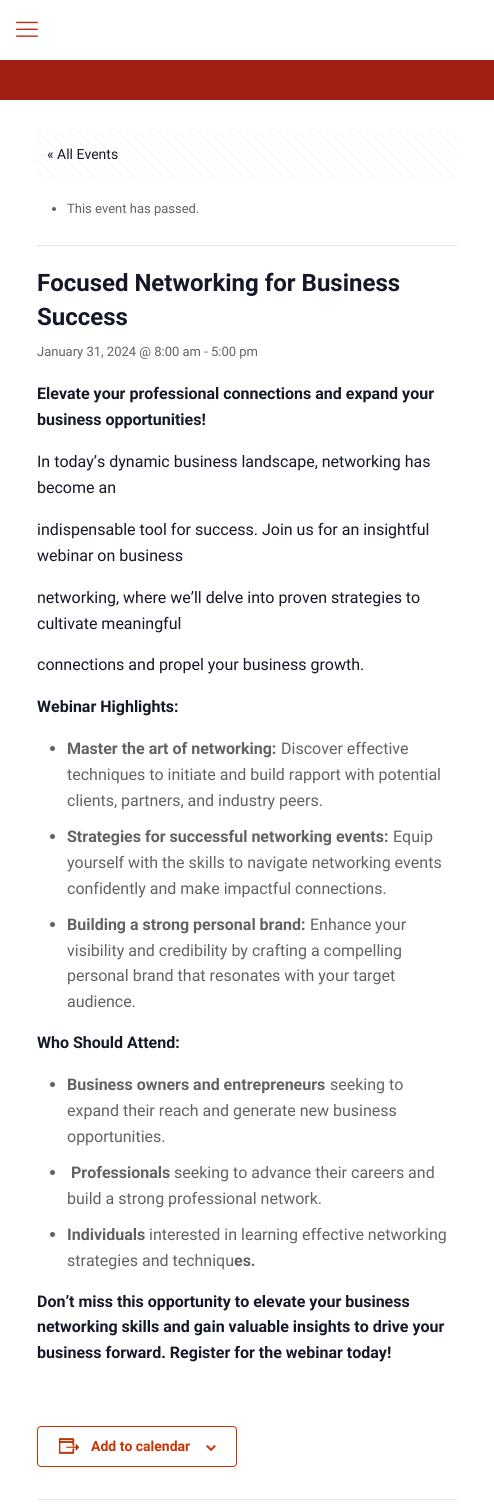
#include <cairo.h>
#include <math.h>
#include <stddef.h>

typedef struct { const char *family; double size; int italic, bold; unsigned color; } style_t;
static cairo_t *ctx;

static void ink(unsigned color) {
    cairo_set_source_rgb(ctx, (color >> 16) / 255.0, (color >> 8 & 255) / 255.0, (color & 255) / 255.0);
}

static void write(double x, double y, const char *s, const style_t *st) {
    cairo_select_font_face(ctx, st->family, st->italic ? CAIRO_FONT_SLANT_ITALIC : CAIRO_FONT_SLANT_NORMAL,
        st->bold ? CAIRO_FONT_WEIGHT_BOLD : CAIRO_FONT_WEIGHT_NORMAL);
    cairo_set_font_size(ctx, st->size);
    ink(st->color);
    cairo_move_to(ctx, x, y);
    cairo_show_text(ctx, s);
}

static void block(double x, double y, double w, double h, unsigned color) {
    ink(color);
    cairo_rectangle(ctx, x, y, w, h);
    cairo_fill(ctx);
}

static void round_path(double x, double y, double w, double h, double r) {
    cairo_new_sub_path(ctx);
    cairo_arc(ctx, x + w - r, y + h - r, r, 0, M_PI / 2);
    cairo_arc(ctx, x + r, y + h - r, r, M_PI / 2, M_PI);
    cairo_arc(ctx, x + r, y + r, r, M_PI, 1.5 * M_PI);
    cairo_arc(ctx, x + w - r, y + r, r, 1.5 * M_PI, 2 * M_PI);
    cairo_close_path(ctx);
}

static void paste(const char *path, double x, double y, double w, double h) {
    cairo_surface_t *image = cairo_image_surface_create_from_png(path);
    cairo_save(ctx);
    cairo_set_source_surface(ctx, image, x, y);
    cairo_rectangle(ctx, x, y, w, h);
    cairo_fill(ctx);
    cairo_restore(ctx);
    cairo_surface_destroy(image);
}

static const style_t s1 = {"Roboto", 14, 0, 0, 0x141827};
static const style_t s2 = {"Roboto", 13, 0, 0, 0x626262};
static const style_t s3 = {"Roboto", 24, 0, 1, 0x141827};
static const style_t s4 = {"Roboto", 16, 0, 1, 0x141827};
static const style_t s5 = {"Roboto", 16, 0, 0, 0x141827};
static const style_t s6 = {"Roboto", 16, 0, 1, 0x626262};
static const style_t s7 = {"Roboto", 16, 0, 0, 0x626262};
static const style_t s8 = {"Roboto", 14, 0, 1, 0xcc3300};

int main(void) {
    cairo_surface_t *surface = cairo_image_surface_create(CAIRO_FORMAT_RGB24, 494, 1511);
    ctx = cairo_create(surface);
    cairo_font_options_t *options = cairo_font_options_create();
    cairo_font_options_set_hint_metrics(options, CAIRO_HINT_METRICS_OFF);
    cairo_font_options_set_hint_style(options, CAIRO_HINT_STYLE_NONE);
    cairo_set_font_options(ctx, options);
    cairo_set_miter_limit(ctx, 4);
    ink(0xffffff);
    cairo_paint(ctx);
    block(0, 60, 494, 40, 0xa01f15);
    paste("pic1.png", 16, 21, 22, 16);
    paste("pic2.png", 37, 130, 420, 49);
    write(47, 159, "« All Events", &s1);
    block(37, 245, 420, 1, 0xe4e4e4);
    ink(0x626262);
    cairo_new_path(ctx);
    cairo_arc(ctx, 54, 209, 2, 0, 2 * M_PI);
    cairo_fill(ctx);
    write(67, 213, "This event has passed.", &s2);
    write(37, 291, "Focused Networking for Business", &s3);
    write(37, 325, "Success", &s3);
    write(37, 356, "January 31, 2024 @ 8:00 am - 5:00 pm", &s2);
    write(37, 399, "Elevate your professional connections and expand your", &s4);
    write(37, 425, "business opportunities!", &s4);
    write(37, 467, "In today’s dynamic business landscape, networking has", &s5);
    write(37, 493, "become an", &s5);
    write(37, 535, "indispensable tool for success. Join us for an insightful", &s5);
    write(37, 561, "webinar on business", &s5);
    write(37, 603, "networking, where we’ll delve into proven strategies to", &s5);
    write(37, 629, "cultivate meaningful", &s5);
    write(37, 670, "connections and propel your business growth.", &s5);
    write(37, 712, "Webinar Highlights:", &s4);
    ink(0x626262);
    cairo_new_path(ctx);
    cairo_arc(ctx, 52.5, 748.5, 2.5, 0, 2 * M_PI);
    cairo_fill(ctx);
    write(67, 754, "Master the art of networking:", &s6);
    write(281, 754, "Discover effective", &s7);
    write(67, 780, "techniques to initiate and build rapport with potential", &s7);
    write(67, 806, "clients, partners, and industry peers.", &s7);
    cairo_new_path(ctx);
    cairo_arc(ctx, 52.5, 836.5, 2.5, 0, 2 * M_PI);
    cairo_fill(ctx);
    write(67, 842, "Strategies for successful networking events:", &s6);
    write(393, 842, "Equip", &s7);
    write(67, 868, "yourself with the skills to navigate networking events", &s7);
    write(67, 894, "confidently and make impactful connections.", &s7);
    cairo_new_path(ctx);
    cairo_arc(ctx, 52.5, 924.5, 2.5, 0, 2 * M_PI);
    cairo_fill(ctx);
    write(67, 930, "Building a strong personal brand:", &s6);
    write(310, 930, "Enhance your", &s7);
    write(67, 956, "visibility and credibility by crafting a compelling", &s7);
    write(67, 981, "personal brand that resonates with your target", &s7);
    write(67, 1007, "audience.", &s7);
    write(37, 1048, "Who Should Attend:", &s4);
    ink(0x626262);
    cairo_new_path(ctx);
    cairo_arc(ctx, 52.5, 1084.5, 2.5, 0, 2 * M_PI);
    cairo_fill(ctx);
    write(67, 1090, "Business owners and entrepreneurs", &s6);
    write(330, 1090, "seeking to", &s7);
    write(67, 1116, "expand their reach and generate new business", &s7);
    write(67, 1142, "opportunities.", &s7);
    cairo_new_path(ctx);
    cairo_arc(ctx, 52.5, 1172.5, 2.5, 0, 2 * M_PI);
    cairo_fill(ctx);
    write(71, 1178, "Professionals", &s6);
    write(174, 1178, "seeking to advance their careers and", &s7);
    write(67, 1204, "build a strong professional network.", &s7);
    cairo_new_path(ctx);
    cairo_arc(ctx, 52.5, 1234.5, 2.5, 0, 2 * M_PI);
    cairo_fill(ctx);
    write(67, 1240, "Individuals", &s6);
    write(149, 1240, "interested in learning effective networking", &s7);
    write(67, 1266, "strategies and techniqu", &s7);
    write(234, 1266, "es.", &s6);
    write(37, 1307, "Don’t miss this opportunity to elevate your business", &s4);
    write(37, 1332, "networking skills and gain valuable insights to drive your", &s4);
    write(37, 1358, "business forward. Register for the webinar today!", &s4);
    round_path(37.5, 1426.5, 199, 40, 3.5);
    ink(0xcc3300);
    cairo_set_line_width(ctx, 1);
    cairo_stroke(ctx);
    paste("pic3.png", 59, 1438, 21, 16);
    write(91, 1451, "Add to calendar", &s8);
    paste("pic4.png", 206, 1445, 10, 6);
    block(37, 1499, 420, 1, 0xe4e4e4);
    cairo_surface_write_to_png(surface, "screenshot.png");
    cairo_font_options_destroy(options);
    cairo_destroy(ctx);
    cairo_surface_destroy(surface);
    return 0;
}
